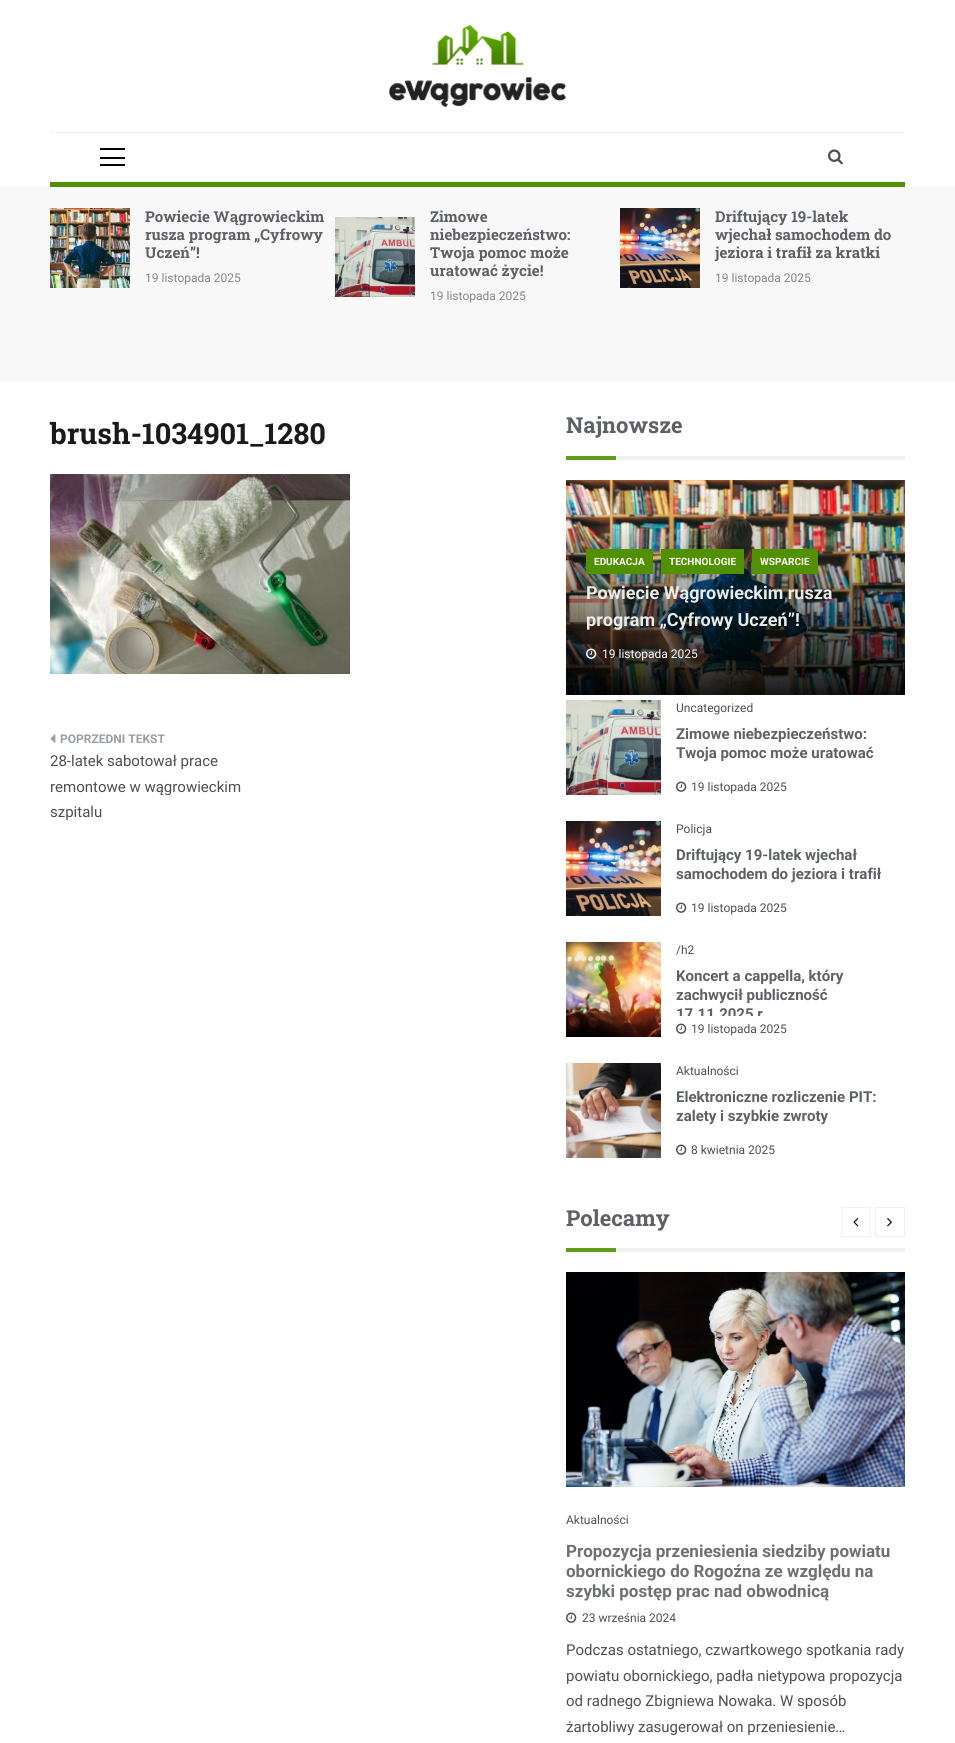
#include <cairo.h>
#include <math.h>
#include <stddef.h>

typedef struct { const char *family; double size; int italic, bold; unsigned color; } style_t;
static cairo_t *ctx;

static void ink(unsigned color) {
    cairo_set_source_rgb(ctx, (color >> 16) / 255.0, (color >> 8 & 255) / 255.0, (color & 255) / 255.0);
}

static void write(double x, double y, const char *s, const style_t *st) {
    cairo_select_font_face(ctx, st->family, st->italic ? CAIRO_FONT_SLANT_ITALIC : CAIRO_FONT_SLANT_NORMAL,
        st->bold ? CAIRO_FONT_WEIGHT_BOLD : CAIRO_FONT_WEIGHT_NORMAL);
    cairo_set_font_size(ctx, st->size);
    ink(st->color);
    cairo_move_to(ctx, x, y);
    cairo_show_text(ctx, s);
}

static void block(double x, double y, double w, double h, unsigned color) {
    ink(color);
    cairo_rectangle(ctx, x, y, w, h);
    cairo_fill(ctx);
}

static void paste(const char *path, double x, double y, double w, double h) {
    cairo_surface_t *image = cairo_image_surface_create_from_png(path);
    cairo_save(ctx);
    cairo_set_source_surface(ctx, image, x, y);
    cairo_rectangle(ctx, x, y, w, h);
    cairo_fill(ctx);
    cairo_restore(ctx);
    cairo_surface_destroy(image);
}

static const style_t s1 = {"Roboto Slab", 15, 0, 1, 0x5d6064};
static const style_t s2 = {"Roboto", 12, 0, 0, 0x868686};
static const style_t s3 = {"Roboto Slab", 29, 0, 1, 0x1a1a1a};
static const style_t s4 = {"Roboto", 12, 0, 1, 0x989ea6};
static const style_t s5 = {"Roboto", 15, 0, 0, 0x4c4f53};
static const style_t s6 = {"Roboto Slab", 22, 0, 1, 0x5d6064};
static const style_t s7 = {"Roboto", 10, 0, 1, 0xffffff};
static const style_t s8 = {"Roboto", 18, 0, 1, 0xeaebeb};
static const style_t s9 = {"Roboto", 12, 0, 0, 0xffffff};
static const style_t s10 = {"Roboto", 12, 0, 0, 0x4c4f53};
static const style_t s11 = {"Roboto", 15, 0, 1, 0x5d6064};
static const style_t s12 = {"Roboto", 17, 0, 1, 0x6e7074};

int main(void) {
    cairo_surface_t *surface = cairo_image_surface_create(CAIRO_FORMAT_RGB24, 955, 1743);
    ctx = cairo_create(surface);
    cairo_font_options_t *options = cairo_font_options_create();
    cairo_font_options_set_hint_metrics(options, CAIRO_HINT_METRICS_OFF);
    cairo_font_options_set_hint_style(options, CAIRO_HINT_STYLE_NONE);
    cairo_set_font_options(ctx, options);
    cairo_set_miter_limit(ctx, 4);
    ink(0xffffff);
    cairo_paint(ctx);
    block(50, 182, 855, 5, 0x519100);
    block(50, 181, 855, 1, 0xfafafa);
    block(50, 132, 855, 1, 0xf2f2f2);
    paste("pic1.png", 389, 25, 177, 82);
    block(100, 148, 25, 2, 0x000000);
    block(100, 157, 25, 2, 0x000000);
    block(100, 164, 25, 2, 0x000000);
    paste("pic2.png", 828, 149, 15, 16);
    block(0, 187, 955, 194, 0xf8f8f8);
    paste("pic3.png", 50, 208, 80, 80);
    write(145, 222, "Powiecie Wągrowieckim", &s1);
    write(145, 240, "rusza program „Cyfrowy", &s1);
    write(145, 258, "Uczeń”!", &s1);
    write(145, 282, "19 listopada 2025", &s2);
    paste("pic4.png", 335, 217, 80, 80);
    write(430, 222, "Zimowe", &s1);
    write(430, 240, "niebezpieczeństwo:", &s1);
    write(430, 258, "Twoja pomoc może", &s1);
    write(430, 276, "uratować życie!", &s1);
    write(430, 300, "19 listopada 2025", &s2);
    paste("pic5.png", 620, 208, 80, 80);
    write(715, 222, "Driftujący 19-latek", &s1);
    write(715, 240, "wjechał samochodem do", &s1);
    write(715, 258, "jeziora i trafił za kratki", &s1);
    write(715, 282, "19 listopada 2025", &s2);
    write(50, 444, "brush-1034901_1280", &s3);
    paste("pic6.png", 50, 474, 300, 200);
    paste("pic7.png", 50, 734, 6, 9);
    write(60, 743, "POPRZEDNI TEKST", &s4);
    write(50, 766, "28-latek sabotował prace", &s5);
    write(50, 792, "remontowe w wągrowieckim", &s5);
    write(50, 817, "szpitalu", &s5);
    write(566, 433, "Najnowsze", &s6);
    block(566, 456, 50, 4, 0x629c1a);
    block(616, 456, 289, 4, 0xf0f0f0);
    paste("pic8.png", 566, 480, 339, 215);
    block(586, 549, 67, 25, 0x519100);
    write(594, 565, "EDUKACJA", &s7);
    block(661, 549, 83, 25, 0x519100);
    write(669, 565, "TECHNOLOGIE", &s7);
    block(752, 549, 66, 25, 0x519100);
    write(760, 565, "WSPARCIE", &s7);
    write(586, 599, "Powiecie Wągrowieckim rusza", &s8);
    write(586, 626, "program „Cyfrowy Uczeń”!", &s8);
    paste("pic9.png", 586, 648, 11, 11);
    write(602, 658, "19 listopada 2025", &s9);
    paste("pic10.png", 566, 700, 95, 95);
    write(676, 712, "Uncategorized", &s10);
    write(676, 739, "Zimowe niebezpieczeństwo:", &s11);
    write(676, 758, "Twoja pomoc może uratować", &s11);
    paste("pic11.png", 676, 781, 11, 11);
    write(691, 791, "19 listopada 2025", &s10);
    paste("pic12.png", 566, 821, 95, 95);
    write(676, 833, "Policja", &s10);
    write(676, 860, "Driftujący 19-latek wjechał", &s11);
    write(676, 879, "samochodem do jeziora i trafił", &s11);
    paste("pic11.png", 676, 902, 11, 11);
    write(691, 912, "19 listopada 2025", &s10);
    paste("pic13.png", 566, 942, 95, 95);
    write(676, 954, "/h2", &s10);
    write(676, 981, "Koncert a cappella, który", &s11);
    write(676, 1000, "zachwycił publiczność", &s11);
    cairo_save(ctx);
    cairo_rectangle(ctx, 676, 966, 221, 50);
    cairo_clip(ctx);
    write(676, 1019, "17.11.2025 r", &s11);
    cairo_restore(ctx);
    paste("pic11.png", 676, 1023, 11, 11);
    write(691, 1033, "19 listopada 2025", &s10);
    paste("pic14.png", 566, 1063, 95, 95);
    write(676, 1075, "Aktualności", &s10);
    write(676, 1102, "Elektroniczne rozliczenie PIT:", &s11);
    write(676, 1121, "zalety i szybkie zwroty", &s11);
    paste("pic11.png", 676, 1144, 11, 11);
    write(691, 1154, "8 kwietnia 2025", &s10);
    write(566, 1226, "Polecamy", &s6);
    block(566, 1248, 50, 4, 0x629c1a);
    block(616, 1248, 289, 4, 0xf0f0f0);
    cairo_rectangle(ctx, 841.5, 1207.5, 29, 29);
    ink(0xeeeeee);
    cairo_set_line_width(ctx, 1);
    cairo_stroke(ctx);
    paste("pic15.png", 853, 1218, 6, 9);
    cairo_rectangle(ctx, 875.5, 1207.5, 29, 29);
    cairo_stroke(ctx);
    paste("pic16.png", 887, 1218, 5, 9);
    paste("pic17.png", 566, 1272, 339, 215);
    write(566, 1524, "Aktualności", &s10);
    write(566, 1557, "Propozycja przeniesienia siedziby powiatu", &s12);
    write(566, 1577, "obornickiego do Rogoźna ze względu na", &s12);
    write(566, 1597, "szybki postęp prac nad obwodnicą", &s12);
    paste("pic11.png", 566, 1612, 11, 11);
    write(582, 1622, "23 września 2024", &s10);
    write(566, 1655, "Podczas ostatniego, czwartkowego spotkania rady", &s5);
    write(566, 1681, "powiatu obornickiego, padła nietypowa propozycja", &s5);
    write(566, 1706, "od radnego Zbigniewa Nowaka. W sposób", &s5);
    write(566, 1732, "żartobliwy zasugerował on przeniesienie…", &s5);
    cairo_surface_write_to_png(surface, "screenshot.png");
    cairo_font_options_destroy(options);
    cairo_destroy(ctx);
    cairo_surface_destroy(surface);
    return 0;
}
